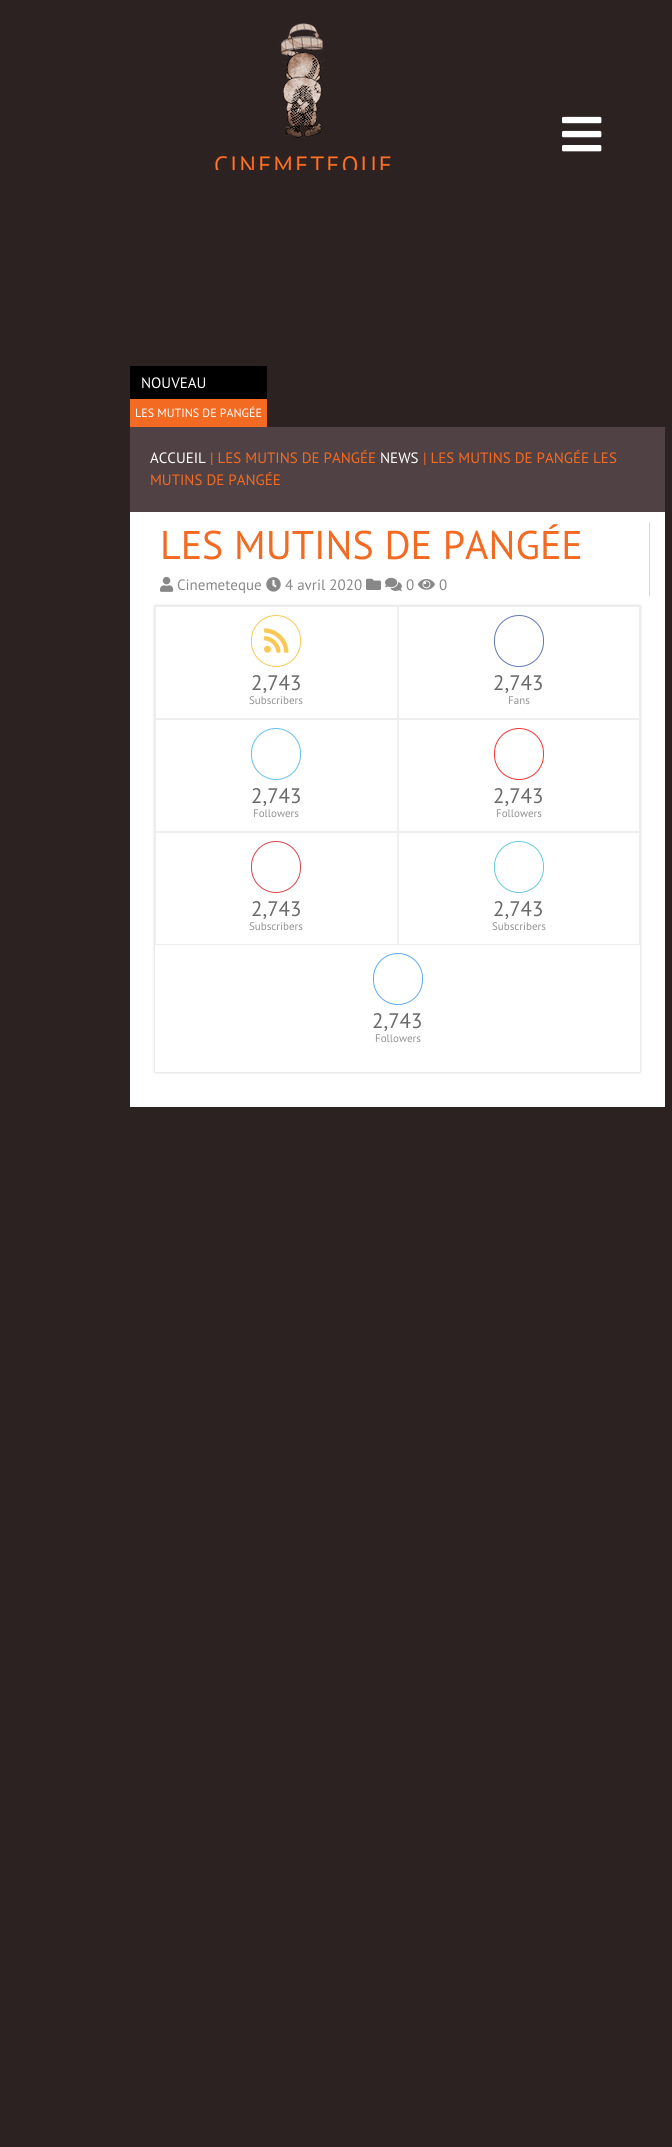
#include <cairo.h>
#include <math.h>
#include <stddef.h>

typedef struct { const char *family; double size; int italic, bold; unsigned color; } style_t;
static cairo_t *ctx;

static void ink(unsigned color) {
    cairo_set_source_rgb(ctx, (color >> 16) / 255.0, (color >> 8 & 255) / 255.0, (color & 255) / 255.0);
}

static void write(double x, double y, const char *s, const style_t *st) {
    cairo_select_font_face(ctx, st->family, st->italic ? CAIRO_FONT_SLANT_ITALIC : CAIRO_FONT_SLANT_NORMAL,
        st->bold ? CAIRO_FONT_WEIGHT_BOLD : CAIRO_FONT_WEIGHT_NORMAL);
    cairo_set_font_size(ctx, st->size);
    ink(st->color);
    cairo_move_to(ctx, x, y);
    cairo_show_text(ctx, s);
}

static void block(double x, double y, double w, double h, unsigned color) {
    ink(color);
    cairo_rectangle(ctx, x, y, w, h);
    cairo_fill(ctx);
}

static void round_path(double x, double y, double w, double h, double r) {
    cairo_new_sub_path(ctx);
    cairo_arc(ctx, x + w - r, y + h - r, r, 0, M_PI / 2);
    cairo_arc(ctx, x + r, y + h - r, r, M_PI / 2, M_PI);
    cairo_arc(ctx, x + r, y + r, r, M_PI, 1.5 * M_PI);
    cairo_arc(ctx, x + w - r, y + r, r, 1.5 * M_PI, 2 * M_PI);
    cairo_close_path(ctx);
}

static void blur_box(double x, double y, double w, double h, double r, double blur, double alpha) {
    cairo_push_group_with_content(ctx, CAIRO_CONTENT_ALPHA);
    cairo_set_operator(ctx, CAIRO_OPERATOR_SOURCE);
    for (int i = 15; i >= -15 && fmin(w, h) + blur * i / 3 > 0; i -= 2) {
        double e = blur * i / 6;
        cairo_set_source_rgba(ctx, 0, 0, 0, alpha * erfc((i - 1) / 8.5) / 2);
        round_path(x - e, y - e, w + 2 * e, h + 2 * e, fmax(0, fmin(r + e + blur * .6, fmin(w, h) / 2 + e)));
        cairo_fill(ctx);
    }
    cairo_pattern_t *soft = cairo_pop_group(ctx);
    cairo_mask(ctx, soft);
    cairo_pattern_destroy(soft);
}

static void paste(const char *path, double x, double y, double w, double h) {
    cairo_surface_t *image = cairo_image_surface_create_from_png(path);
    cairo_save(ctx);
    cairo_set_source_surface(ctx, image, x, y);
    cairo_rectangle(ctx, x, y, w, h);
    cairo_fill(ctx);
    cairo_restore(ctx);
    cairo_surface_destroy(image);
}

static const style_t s1 = {"PT Sans", 15, 0, 0, 0xffffff};
static const style_t s2 = {"PT Sans", 12, 0, 0, 0xffffff};
static const style_t s3 = {"PT Sans", 15, 0, 0, 0xf36a22};
static const style_t s4 = {"PT Sans", 40, 0, 0, 0xf36a22};
static const style_t s5 = {"PT Sans", 15, 0, 0, 0x888888};
static const style_t s6 = {"PT Sans", 21, 0, 0, 0x696969};
static const style_t s7 = {"PT Sans", 11, 0, 0, 0x929292};

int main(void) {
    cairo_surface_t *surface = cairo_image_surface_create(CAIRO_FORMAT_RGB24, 672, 2147);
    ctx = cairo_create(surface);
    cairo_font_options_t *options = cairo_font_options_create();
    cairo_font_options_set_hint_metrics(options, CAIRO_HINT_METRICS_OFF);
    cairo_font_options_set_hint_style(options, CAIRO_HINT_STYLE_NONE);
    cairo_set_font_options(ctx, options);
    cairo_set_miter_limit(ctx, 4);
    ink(0x2d2222);
    cairo_paint(ctx);
    paste("pic1.png", 213, 23, 180, 147);
    paste("pic2.png", 562, 116, 40, 36);
    block(130, 366, 137, 33, 0x000000);
    write(141, 388, "NOUVEAU", &s1);
    block(130, 399, 137, 28, 0xf36a22);
    write(135, 417, "LES MUTINS DE PANGÉE", &s2);
    block(130, 427, 535, 85, 0x504244);
    write(150, 463, "ACCUEIL", &s1);
    write(210, 463, "| LES MUTINS DE PANGÉE", &s3);
    write(380, 463, "NEWS", &s1);
    write(423, 463, "| LES MUTINS DE PANGÉE LES", &s3);
    write(150, 485, "MUTINS DE PANGÉE", &s3);
    block(130, 512, 535, 595, 0xffffff);
    block(649, 522, 1, 74, 0xd8d8d8);
    write(160, 559, "LES MUTINS DE PANGÉE", &s4);
    paste("pic3.png", 160, 576, 14, 16);
    write(177, 590, "Cinemeteque", &s5);
    paste("pic4.png", 266, 577, 15, 15);
    write(285, 590, "4 avril 2020", &s5);
    paste("pic5.png", 366, 578, 15, 12);
    paste("pic6.png", 385, 577, 17, 14);
    write(406, 590, "0", &s5);
    paste("pic7.png", 418, 579, 17, 11);
    write(439, 590, "0", &s5);
    cairo_save(ctx);
    cairo_set_fill_rule(ctx, CAIRO_FILL_RULE_EVEN_ODD);
    cairo_new_path(ctx);
    cairo_move_to(ctx, 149, 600);
    cairo_line_to(ctx, 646, 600);
    cairo_line_to(ctx, 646, 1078);
    cairo_line_to(ctx, 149, 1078);
    cairo_close_path(ctx);
    cairo_move_to(ctx, 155, 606);
    cairo_line_to(ctx, 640, 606);
    cairo_line_to(ctx, 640, 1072);
    cairo_line_to(ctx, 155, 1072);
    cairo_close_path(ctx);
    cairo_clip(ctx);
    ink(0xcacaca);
    blur_box(155, 606, 485, 466, 0, 1.5, 1);
    cairo_restore(ctx);
    cairo_rectangle(ctx, 155.5, 606.5, 242, 112);
    ink(0xeeeeee);
    cairo_set_line_width(ctx, 1);
    cairo_stroke(ctx);
    round_path(251.5, 615.5, 49, 51, 24.5);
    ink(0xf9c958);
    cairo_stroke(ctx);
    paste("pic8.png", 264, 628, 25, 25);
    write(251, 690, "2,743", &s6);
    write(249, 704, "Subscribers", &s7);
    cairo_rectangle(ctx, 398.5, 606.5, 241, 112);
    ink(0xeeeeee);
    cairo_stroke(ctx);
    round_path(494.5, 615.5, 49, 51, 24.5);
    ink(0x617ab2);
    cairo_stroke(ctx);
    write(493, 690, "2,743", &s6);
    write(508, 704, "Fans", &s7);
    cairo_rectangle(ctx, 155.5, 719.5, 242, 112);
    ink(0xeeeeee);
    cairo_stroke(ctx);
    round_path(251.5, 728.5, 49, 51, 24.5);
    ink(0x6ac0e9);
    cairo_stroke(ctx);
    write(251, 803, "2,743", &s6);
    write(253, 817, "Followers", &s7);
    cairo_rectangle(ctx, 398.5, 719.5, 241, 112);
    ink(0xeeeeee);
    cairo_stroke(ctx);
    round_path(494.5, 728.5, 49, 51, 24.5);
    ink(0xfb3434);
    cairo_stroke(ctx);
    write(493, 803, "2,743", &s6);
    write(496, 817, "Followers", &s7);
    cairo_rectangle(ctx, 155.5, 832.5, 242, 112);
    ink(0xeeeeee);
    cairo_stroke(ctx);
    round_path(251.5, 841.5, 49, 51, 24.5);
    ink(0xd6464b);
    cairo_stroke(ctx);
    write(251, 916, "2,743", &s6);
    write(249, 930, "Subscribers", &s7);
    cairo_rectangle(ctx, 398.5, 832.5, 241, 112);
    ink(0xeeeeee);
    cairo_stroke(ctx);
    round_path(494.5, 841.5, 49, 51, 24.5);
    ink(0x65ccd8);
    cairo_stroke(ctx);
    write(493, 916, "2,743", &s6);
    write(492, 930, "Subscribers", &s7);
    round_path(373.5, 953.5, 49, 51, 24.5);
    ink(0x60acf3);
    cairo_stroke(ctx);
    write(372, 1028, "2,743", &s6);
    write(375, 1042, "Followers", &s7);
    cairo_surface_write_to_png(surface, "screenshot.png");
    cairo_font_options_destroy(options);
    cairo_destroy(ctx);
    cairo_surface_destroy(surface);
    return 0;
}
